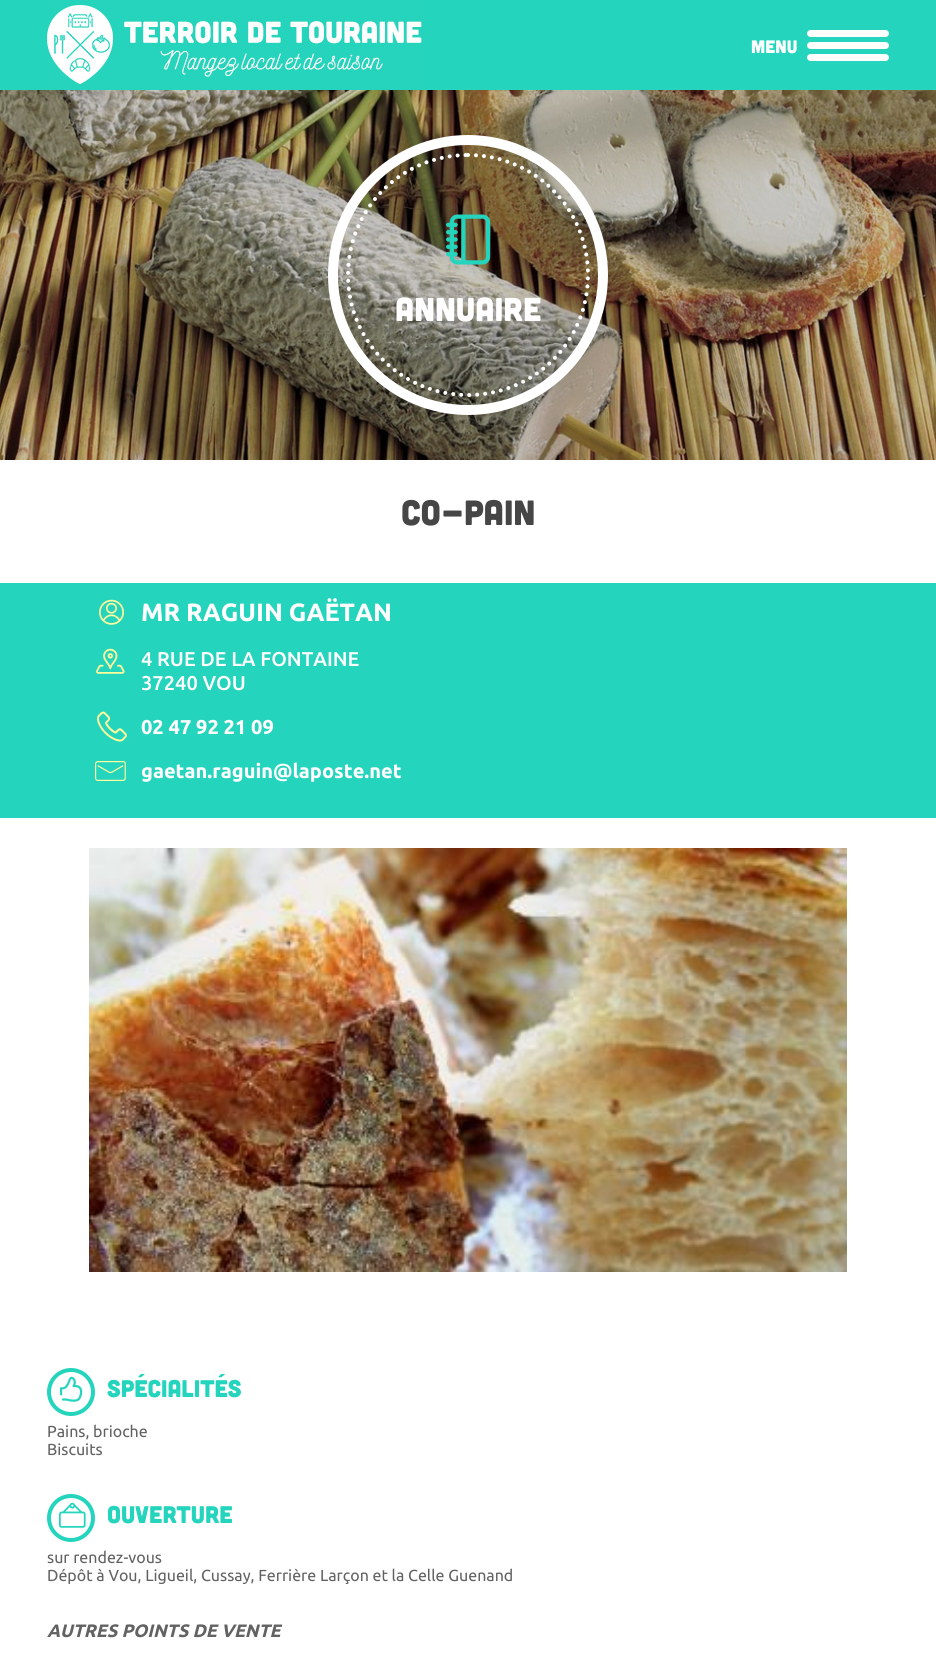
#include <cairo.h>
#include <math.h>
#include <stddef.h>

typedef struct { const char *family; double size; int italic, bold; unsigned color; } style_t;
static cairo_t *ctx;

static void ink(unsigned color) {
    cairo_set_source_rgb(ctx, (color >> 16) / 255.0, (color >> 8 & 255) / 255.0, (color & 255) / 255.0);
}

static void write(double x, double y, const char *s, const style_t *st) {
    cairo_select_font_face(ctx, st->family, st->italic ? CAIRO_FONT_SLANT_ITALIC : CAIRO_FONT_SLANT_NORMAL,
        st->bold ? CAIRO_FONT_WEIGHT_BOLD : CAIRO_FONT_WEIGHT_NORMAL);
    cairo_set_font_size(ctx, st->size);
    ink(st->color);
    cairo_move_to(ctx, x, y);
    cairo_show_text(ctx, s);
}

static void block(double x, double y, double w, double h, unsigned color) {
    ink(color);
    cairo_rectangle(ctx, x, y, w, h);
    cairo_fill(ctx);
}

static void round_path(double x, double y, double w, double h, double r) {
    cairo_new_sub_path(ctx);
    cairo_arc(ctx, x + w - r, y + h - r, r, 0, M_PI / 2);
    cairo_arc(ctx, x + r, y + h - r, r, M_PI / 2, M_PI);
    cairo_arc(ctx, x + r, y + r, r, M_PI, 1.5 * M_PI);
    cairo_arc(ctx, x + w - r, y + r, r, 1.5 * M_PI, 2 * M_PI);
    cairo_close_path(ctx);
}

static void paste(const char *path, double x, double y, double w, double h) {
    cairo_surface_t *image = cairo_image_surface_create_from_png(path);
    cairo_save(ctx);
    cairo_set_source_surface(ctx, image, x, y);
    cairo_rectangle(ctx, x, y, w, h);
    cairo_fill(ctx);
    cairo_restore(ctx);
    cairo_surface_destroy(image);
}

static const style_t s1 = {"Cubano", 18, 0, 0, 0xffffff};
static const style_t s2 = {"Cubano", 33, 0, 0, 0xffffff};
static const style_t s3 = {"Cubano", 35, 0, 0, 0x464646};
static const style_t s4 = {"Ubuntu", 25, 0, 1, 0xffffff};
static const style_t s5 = {"Ubuntu Medium", 20, 0, 0, 0xffffff};
static const style_t s6 = {"Ubuntu", 20, 0, 1, 0xffffff};
static const style_t s7 = {"Cubano", 24, 0, 0, 0x25d4bc};
static const style_t s8 = {"Ubuntu", 16, 0, 0, 0x626262};
static const style_t s9 = {"Ubuntu", 18, 1, 1, 0x626262};

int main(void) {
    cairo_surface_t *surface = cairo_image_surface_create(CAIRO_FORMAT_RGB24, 936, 1657);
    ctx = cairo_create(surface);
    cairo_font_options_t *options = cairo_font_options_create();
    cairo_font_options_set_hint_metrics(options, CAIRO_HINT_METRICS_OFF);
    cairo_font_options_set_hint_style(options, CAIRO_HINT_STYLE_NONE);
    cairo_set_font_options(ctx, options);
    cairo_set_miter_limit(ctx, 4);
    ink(0xffffff);
    cairo_paint(ctx);
    block(0, 0, 936, 90, 0x25d4bc);
    paste("pic1.png", 47, 0, 376, 88);
    write(751, 53, "MENU", &s1);
    round_path(807, 42, 82, 7, 3.5);
    cairo_fill(ctx);
    round_path(807, 30, 82, 7, 3.5);
    cairo_fill(ctx);
    round_path(807, 54, 82, 7, 3.5);
    cairo_fill(ctx);
    paste("pic2.png", 0, 90, 936, 370);
    cairo_arc(ctx, 468, 275, 135, 0, 2 * M_PI);
    cairo_set_line_width(ctx, 10);
    cairo_stroke(ctx);
    paste("pic3.png", 446, 214, 45, 51);
    cairo_new_path(ctx);
    cairo_move_to(ctx, 468, 155);
    cairo_curve_to(ctx, 534.5, 155, 588, 208.5, 588, 275);
    cairo_curve_to(ctx, 588, 341.5, 534.5, 395, 468, 395);
    cairo_curve_to(ctx, 401.5, 395, 348, 341.5, 348, 275);
    cairo_curve_to(ctx, 348, 208.5, 401.5, 155, 468, 155);
    cairo_close_path(ctx);
    cairo_set_line_width(ctx, 4);
    cairo_set_line_cap(ctx, CAIRO_LINE_CAP_ROUND);
    cairo_set_dash(ctx, (double[]){0, 8}, 2, 0);
    cairo_stroke(ctx);
    write(395, 321, "ANNUAIRE", &s2);
    write(401, 525, "CO-PAIN", &s3);
    block(0, 583, 936, 235, 0x25d4bc);
    paste("pic4.png", 99, 599, 25, 26);
    write(141, 621, "MR RAGUIN GAËTAN", &s4);
    paste("pic5.png", 96, 648, 29, 26);
    write(141, 666, "4 RUE DE LA FONTAINE", &s5);
    write(141, 690, "37240 VOU", &s5);
    paste("pic6.png", 97, 711, 30, 31);
    write(141, 734, "02 47 92 21 09", &s6);
    paste("pic7.png", 95, 761, 31, 20);
    write(141, 778, "gaetan.raguin@laposte.net", &s6);
    paste("pic8.png", 89, 848, 758, 424);
    cairo_arc(ctx, 71, 1392, 22, 0, 2 * M_PI);
    ink(0x25d4bc);
    cairo_set_line_cap(ctx, CAIRO_LINE_CAP_BUTT);
    cairo_set_dash(ctx, NULL, 0, 0);
    cairo_stroke(ctx);
    write(107, 1397, "SPÉCIALITÉS", &s7);
    paste("pic9.png", 60, 1376, 23, 26);
    write(47, 1437, "Pains, brioche", &s8);
    write(47, 1455, "Biscuits", &s8);
    cairo_new_path(ctx);
    cairo_arc(ctx, 71, 1518, 22, 0, 2 * M_PI);
    ink(0x25d4bc);
    cairo_stroke(ctx);
    paste("pic10.png", 59, 1502, 27, 26);
    write(107, 1523, "OUVERTURE", &s7);
    write(47, 1563, "sur rendez-vous", &s8);
    write(47, 1581, "Dépôt à Vou, Ligueil, Cussay, Ferrière Larçon et la Celle Guenand", &s8);
    write(47, 1637, "AUTRES POINTS DE VENTE", &s9);
    cairo_surface_write_to_png(surface, "screenshot.png");
    cairo_font_options_destroy(options);
    cairo_destroy(ctx);
    cairo_surface_destroy(surface);
    return 0;
}
